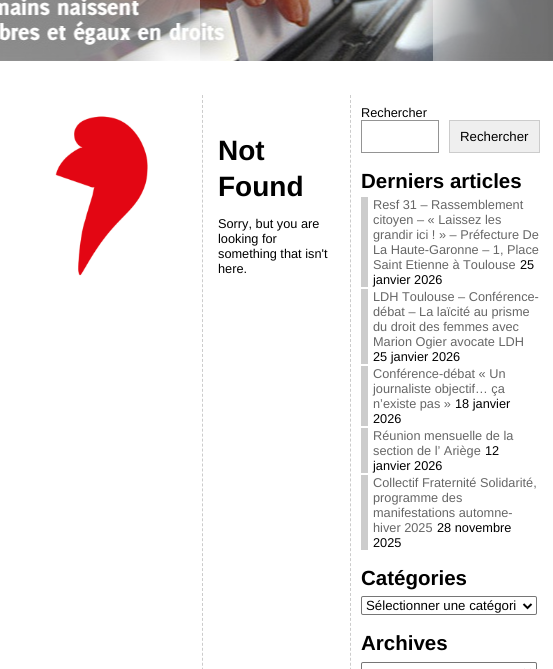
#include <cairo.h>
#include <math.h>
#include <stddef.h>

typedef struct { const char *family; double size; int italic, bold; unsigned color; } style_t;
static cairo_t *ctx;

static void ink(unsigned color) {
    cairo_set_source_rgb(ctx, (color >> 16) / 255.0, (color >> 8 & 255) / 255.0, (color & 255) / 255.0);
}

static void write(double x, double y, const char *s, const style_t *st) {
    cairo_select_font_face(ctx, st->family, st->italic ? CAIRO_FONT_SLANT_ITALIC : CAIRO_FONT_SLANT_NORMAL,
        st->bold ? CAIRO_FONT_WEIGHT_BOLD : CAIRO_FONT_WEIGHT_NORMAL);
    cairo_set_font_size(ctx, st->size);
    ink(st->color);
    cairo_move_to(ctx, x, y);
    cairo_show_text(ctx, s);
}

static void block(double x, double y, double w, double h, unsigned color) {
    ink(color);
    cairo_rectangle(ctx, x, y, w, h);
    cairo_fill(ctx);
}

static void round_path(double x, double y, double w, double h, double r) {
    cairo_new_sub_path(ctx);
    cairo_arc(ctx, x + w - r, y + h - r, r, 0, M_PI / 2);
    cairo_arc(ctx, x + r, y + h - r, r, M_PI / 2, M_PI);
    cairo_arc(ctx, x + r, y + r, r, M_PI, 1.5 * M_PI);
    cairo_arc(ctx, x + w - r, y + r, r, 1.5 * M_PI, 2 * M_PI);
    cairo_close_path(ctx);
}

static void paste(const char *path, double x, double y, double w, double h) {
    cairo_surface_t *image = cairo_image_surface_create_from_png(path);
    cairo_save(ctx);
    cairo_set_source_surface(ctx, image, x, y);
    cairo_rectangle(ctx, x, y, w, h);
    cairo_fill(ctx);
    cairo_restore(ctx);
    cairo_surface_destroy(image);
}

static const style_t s1 = {"Liberation Sans", 28, 0, 1, 0x000000};
static const style_t s2 = {"Liberation Sans", 12.75, 0, 0, 0x000000};
static const style_t s3 = {"Liberation Sans", 13.25, 0, 0, 0x000000};
static const style_t s4 = {"Liberation Sans", 20.5, 0, 1, 0x000000};
static const style_t s5 = {"Liberation Sans", 12.75, 0, 0, 0x666666};

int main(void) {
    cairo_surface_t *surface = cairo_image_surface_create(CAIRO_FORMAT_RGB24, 553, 669);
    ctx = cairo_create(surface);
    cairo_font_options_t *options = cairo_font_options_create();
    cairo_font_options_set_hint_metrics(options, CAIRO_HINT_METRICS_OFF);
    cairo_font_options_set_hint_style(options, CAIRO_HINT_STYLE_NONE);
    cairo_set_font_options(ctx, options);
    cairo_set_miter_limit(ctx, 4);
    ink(0xffffff);
    cairo_paint(ctx);
    paste("pic1.png", 0, 0, 553, 61);
    cairo_set_source_rgba(ctx, 1, 1, 1, 0.4);
    cairo_rectangle(ctx, 0, 0, 200, 61);
    cairo_fill(ctx);
    cairo_rectangle(ctx, 433, 0, 120, 61);
    cairo_fill(ctx);
    cairo_new_path(ctx);
    cairo_move_to(ctx, 202.5, 95);
    cairo_line_to(ctx, 202.5, 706);
    ink(0xcccccc);
    cairo_set_line_width(ctx, 1);
    cairo_set_dash(ctx, (double[]){3, 1.98}, 2, 0);
    cairo_stroke(ctx);
    paste("pic2.png", 55, 116, 93, 160);
    write(218, 160, "Not", &s1);
    write(218, 196, "Found", &s1);
    write(218, 228, "Sorry, but you are", &s2);
    write(218, 243, "looking for", &s2);
    write(218, 258, "something that isn't", &s2);
    write(218, 273, "here.", &s2);
    cairo_new_path(ctx);
    cairo_move_to(ctx, 350.5, 95);
    cairo_line_to(ctx, 350.5, 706);
    ink(0xcccccc);
    cairo_stroke(ctx);
    write(361, 117, "Rechercher", &s2);
    cairo_rectangle(ctx, 361.5, 120.5, 77, 32);
    ink(0x949494);
    cairo_set_dash(ctx, NULL, 0, 0);
    cairo_stroke(ctx);
    ink(0xefefef);
    cairo_rectangle(ctx, 449.5, 120.5, 90, 32);
    cairo_fill_preserve(ctx);
    ink(0xcccccc);
    cairo_stroke(ctx);
    write(460, 141, "Rechercher", &s3);
    write(361, 188, "Derniers articles", &s4);
    block(361, 197, 7, 90, 0xcccccc);
    write(373, 209, "Resf 31 – Rassemblement", &s5);
    write(373, 224, "citoyen – « Laissez les", &s5);
    write(373, 239, "grandir ici ! » – Préfecture De", &s5);
    write(373, 254, "La Haute-Garonne – 1, Place", &s5);
    write(373, 269, "Saint Etienne à Toulouse", &s5);
    write(520, 269, "25", &s2);
    write(373, 284, "janvier 2026", &s2);
    block(361, 289, 7, 75, 0xcccccc);
    write(373, 301, "LDH Toulouse – Conférence-", &s5);
    write(373, 316, "débat – La laïcité au prisme", &s5);
    write(373, 331, "du droit des femmes avec", &s5);
    write(373, 346, "Marion Ogier avocate LDH", &s5);
    write(373, 361, "25 janvier 2026", &s2);
    block(361, 366, 7, 60, 0xcccccc);
    write(373, 378, "Conférence-débat « Un", &s5);
    write(373, 393, "journaliste objectif… ça", &s5);
    write(373, 408, "n’existe pas »", &s5);
    write(455, 408, "18 janvier", &s2);
    write(373, 423, "2026", &s2);
    block(361, 428, 7, 45, 0xcccccc);
    write(373, 440, "Réunion mensuelle de la", &s5);
    write(373, 455, "section de l’ Ariège", &s5);
    write(485, 455, "12", &s2);
    write(373, 470, "janvier 2026", &s2);
    block(361, 475, 7, 75, 0xcccccc);
    write(373, 487, "Collectif Fraternité Solidarité,", &s5);
    write(373, 502, "programme des", &s5);
    write(373, 517, "manifestations automne-", &s5);
    write(373, 532, "hiver 2025", &s5);
    write(437, 532, "28 novembre", &s2);
    write(373, 547, "2025", &s2);
    write(361, 585, "Catégories", &s4);
    round_path(361.5, 596.5, 175, 18, 1.5);
    ink(0x767676);
    cairo_stroke(ctx);
    cairo_new_path(ctx);
    cairo_move_to(ctx, 523.5, 604);
    cairo_line_to(ctx, 527.5, 608);
    cairo_line_to(ctx, 531.5, 604);
    ink(0x000000);
    cairo_set_line_width(ctx, 2);
    cairo_stroke(ctx);
    write(366, 610, "Sélectionner une catégori", &s3);
    write(361, 650, "Archives", &s4);
    round_path(361.5, 662.5, 175, 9, 1.5);
    ink(0x767676);
    cairo_set_line_width(ctx, 1);
    cairo_stroke(ctx);
    cairo_new_path(ctx);
    cairo_move_to(ctx, 523.5, 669.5);
    cairo_line_to(ctx, 527.5, 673.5);
    cairo_line_to(ctx, 531.5, 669.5);
    ink(0x000000);
    cairo_set_line_width(ctx, 2);
    cairo_stroke(ctx);
    cairo_surface_write_to_png(surface, "screenshot.png");
    cairo_font_options_destroy(options);
    cairo_destroy(ctx);
    cairo_surface_destroy(surface);
    return 0;
}
